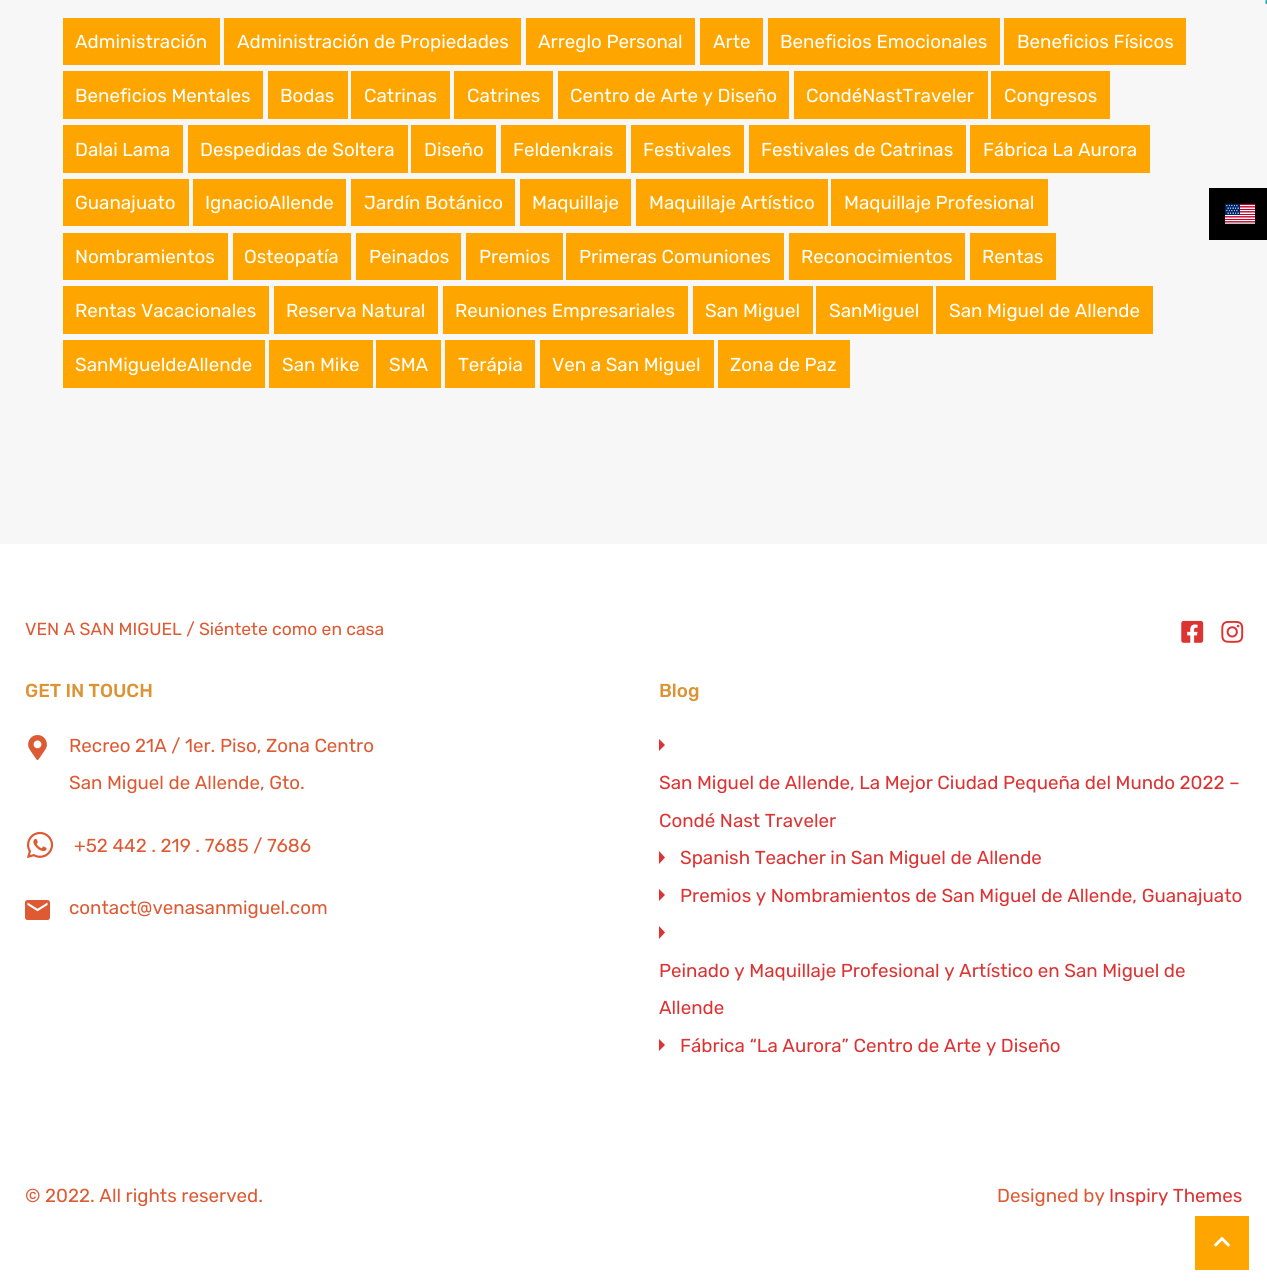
#include <cairo.h>
#include <math.h>
#include <stddef.h>

typedef struct { const char *family; double size; int italic, bold; unsigned color; } style_t;
static cairo_t *ctx;

static void ink(unsigned color) {
    cairo_set_source_rgb(ctx, (color >> 16) / 255.0, (color >> 8 & 255) / 255.0, (color & 255) / 255.0);
}

static void write(double x, double y, const char *s, const style_t *st) {
    cairo_select_font_face(ctx, st->family, st->italic ? CAIRO_FONT_SLANT_ITALIC : CAIRO_FONT_SLANT_NORMAL,
        st->bold ? CAIRO_FONT_WEIGHT_BOLD : CAIRO_FONT_WEIGHT_NORMAL);
    cairo_set_font_size(ctx, st->size);
    ink(st->color);
    cairo_move_to(ctx, x, y);
    cairo_show_text(ctx, s);
}

static void block(double x, double y, double w, double h, unsigned color) {
    ink(color);
    cairo_rectangle(ctx, x, y, w, h);
    cairo_fill(ctx);
}

static void paste(const char *path, double x, double y, double w, double h) {
    cairo_surface_t *image = cairo_image_surface_create_from_png(path);
    cairo_save(ctx);
    cairo_set_source_surface(ctx, image, x, y);
    cairo_rectangle(ctx, x, y, w, h);
    cairo_fill(ctx);
    cairo_restore(ctx);
    cairo_surface_destroy(image);
}

static const style_t s1 = {"Rubik", 18.75, 0, 0, 0xffffff};
static const style_t s2 = {"Rubik", 17.5, 0, 0, 0xdd5a33};
static const style_t s3 = {"Rubik Medium", 18.75, 0, 0, 0xdd9333};
static const style_t s4 = {"Rubik", 18.75, 0, 0, 0xdd5a33};
static const style_t s5 = {"Rubik", 18.75, 0, 0, 0xdd3333};

int main(void) {
    cairo_surface_t *surface = cairo_image_surface_create(CAIRO_FORMAT_RGB24, 1267, 1288);
    ctx = cairo_create(surface);
    cairo_font_options_t *options = cairo_font_options_create();
    cairo_font_options_set_hint_metrics(options, CAIRO_HINT_METRICS_OFF);
    cairo_font_options_set_hint_style(options, CAIRO_HINT_STYLE_NONE);
    cairo_set_font_options(ctx, options);
    cairo_set_miter_limit(ctx, 4);
    ink(0xf7f7f7);
    cairo_paint(ctx);
    cairo_new_path(ctx);
    cairo_move_to(ctx, 1265.5, 2);
    cairo_line_to(ctx, 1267.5, 2);
    ink(0x1ea69a);
    cairo_set_line_width(ctx, 3.8);
    cairo_stroke(ctx);
    block(63, 18, 157, 47, 0xffa500);
    write(75, 48, "Administración", &s1);
    block(224, 18, 297, 47, 0xffa500);
    write(237, 48, "Administración de Propiedades", &s1);
    block(526, 18, 169, 47, 0xffa500);
    write(538, 48, "Arreglo Personal", &s1);
    block(700, 18, 63, 47, 0xffa500);
    write(713, 48, "Arte", &s1);
    block(768, 18, 232, 47, 0xffa500);
    write(780, 48, "Beneficios Emocionales", &s1);
    block(1004, 18, 182, 47, 0xffa500);
    write(1017, 48, "Beneficios Físicos", &s1);
    block(63, 71, 200, 48, 0xffa500);
    write(75, 102, "Beneficios Mentales", &s1);
    block(268, 71, 80, 48, 0xffa500);
    write(280, 102, "Bodas", &s1);
    block(351, 71, 99, 48, 0xffa500);
    write(364, 102, "Catrinas", &s1);
    block(454, 71, 99, 48, 0xffa500);
    write(467, 102, "Catrines", &s1);
    block(558, 71, 231, 48, 0xffa500);
    write(570, 102, "Centro de Arte y Diseño", &s1);
    block(794, 71, 194, 48, 0xffa500);
    write(806, 102, "CondéNastTraveler", &s1);
    block(991, 71, 119, 48, 0xffa500);
    write(1004, 102, "Congresos", &s1);
    block(63, 125, 120, 48, 0xffa500);
    write(75, 156, "Dalai Lama", &s1);
    block(188, 125, 220, 48, 0xffa500);
    write(200, 156, "Despedidas de Soltera", &s1);
    block(411, 125, 85, 48, 0xffa500);
    write(424, 156, "Diseño", &s1);
    block(501, 125, 125, 48, 0xffa500);
    write(513, 156, "Feldenkrais", &s1);
    block(631, 125, 113, 48, 0xffa500);
    write(643, 156, "Festivales", &s1);
    block(749, 125, 217, 48, 0xffa500);
    write(761, 156, "Festivales de Catrinas", &s1);
    block(970, 125, 180, 48, 0xffa500);
    write(983, 156, "Fábrica La Aurora", &s1);
    block(63, 179, 126, 47, 0xffa500);
    write(75, 209, "Guanajuato", &s1);
    block(193, 179, 153, 47, 0xffa500);
    write(205, 209, "IgnacioAllende", &s1);
    block(351, 179, 164, 47, 0xffa500);
    write(364, 209, "Jardín Botánico", &s1);
    block(520, 179, 111, 47, 0xffa500);
    write(532, 209, "Maquillaje", &s1);
    block(636, 179, 192, 47, 0xffa500);
    write(649, 209, "Maquillaje Artístico", &s1);
    block(831, 179, 217, 47, 0xffa500);
    write(844, 209, "Maquillaje Profesional", &s1);
    block(63, 233, 165, 47, 0xffa500);
    write(75, 263, "Nombramientos", &s1);
    block(233, 233, 118, 47, 0xffa500);
    write(244, 263, "Osteopatía", &s1);
    block(356, 233, 105, 47, 0xffa500);
    write(369, 263, "Peinados", &s1);
    block(466, 233, 97, 47, 0xffa500);
    write(479, 263, "Premios", &s1);
    block(566, 233, 218, 47, 0xffa500);
    write(579, 263, "Primeras Comuniones", &s1);
    block(789, 233, 176, 47, 0xffa500);
    write(801, 263, "Reconocimientos", &s1);
    block(970, 233, 86, 47, 0xffa500);
    write(982, 263, "Rentas", &s1);
    block(63, 286, 206, 48, 0xffa500);
    write(75, 317, "Rentas Vacacionales", &s1);
    block(274, 286, 164, 48, 0xffa500);
    write(286, 317, "Reserva Natural", &s1);
    block(443, 286, 245, 48, 0xffa500);
    write(455, 317, "Reuniones Empresariales", &s1);
    block(693, 286, 120, 48, 0xffa500);
    write(705, 317, "San Miguel", &s1);
    block(816, 286, 117, 48, 0xffa500);
    write(829, 317, "SanMiguel", &s1);
    block(936, 286, 217, 48, 0xffa500);
    write(949, 317, "San Miguel de Allende", &s1);
    block(63, 340, 202, 48, 0xffa500);
    write(75, 371, "SanMigueldeAllende", &s1);
    block(269, 340, 104, 48, 0xffa500);
    write(282, 371, "San Mike", &s1);
    block(376, 340, 65, 48, 0xffa500);
    write(389, 371, "SMA", &s1);
    block(445, 340, 90, 48, 0xffa500);
    write(458, 371, "Terápia", &s1);
    block(540, 340, 174, 48, 0xffa500);
    write(552, 371, "Ven a San Miguel", &s1);
    block(718, 340, 132, 48, 0xffa500);
    write(730, 371, "Zona de Paz", &s1);
    block(0, 544, 1267, 744, 0xffffff);
    write(25, 635, "VEN A SAN MIGUEL / Siéntete como en casa", &s2);
    paste("pic1.png", 1181, 620, 23, 23);
    paste("pic2.png", 1221, 620, 23, 23);
    write(25, 697, "GET IN TOUCH", &s3);
    paste("pic3.png", 28, 735, 19, 25);
    write(69, 752, "Recreo 21A / 1er. Piso, Zona Centro", &s4);
    write(69, 789, "San Miguel de Allende, Gto.", &s4);
    paste("pic4.png", 27, 831, 27, 27);
    write(74, 852, "+52 442 . 219 . 7685 / 7686", &s4);
    paste("pic5.png", 25, 900, 25, 20);
    write(69, 914, "contact@venasanmiguel.com", &s4);
    write(659, 697, "Blog", &s3);
    ink(0xdd3333);
    cairo_new_path(ctx);
    cairo_move_to(ctx, 659, 751);
    cairo_line_to(ctx, 659, 739);
    cairo_line_to(ctx, 665, 745);
    cairo_close_path(ctx);
    cairo_fill(ctx);
    write(659, 789, "San Miguel de Allende, La Mejor Ciudad Pequeña del Mundo 2022 –", &s5);
    write(659, 827, "Condé Nast Traveler", &s5);
    cairo_new_path(ctx);
    cairo_move_to(ctx, 659, 864);
    cairo_line_to(ctx, 659, 851);
    cairo_line_to(ctx, 665, 857.5);
    cairo_close_path(ctx);
    cairo_fill(ctx);
    write(680, 864, "Spanish Teacher in San Miguel de Allende", &s5);
    cairo_new_path(ctx);
    cairo_move_to(ctx, 659, 901);
    cairo_line_to(ctx, 659, 889);
    cairo_line_to(ctx, 665, 895);
    cairo_close_path(ctx);
    cairo_fill(ctx);
    write(680, 902, "Premios y Nombramientos de San Miguel de Allende, Guanajuato", &s5);
    cairo_new_path(ctx);
    cairo_move_to(ctx, 659, 939);
    cairo_line_to(ctx, 659, 926);
    cairo_line_to(ctx, 665, 932.5);
    cairo_close_path(ctx);
    cairo_fill(ctx);
    write(659, 977, "Peinado y Maquillaje Profesional y Artístico en San Miguel de", &s5);
    write(659, 1014, "Allende", &s5);
    cairo_new_path(ctx);
    cairo_move_to(ctx, 659, 1051);
    cairo_line_to(ctx, 659, 1039);
    cairo_line_to(ctx, 665, 1045);
    cairo_close_path(ctx);
    cairo_fill(ctx);
    write(680, 1052, "Fábrica “La Aurora” Centro de Arte y Diseño", &s5);
    write(25, 1202, "© 2022. All rights reserved.", &s4);
    write(997, 1202, "Designed by", &s4);
    write(1109, 1202, "Inspiry Themes", &s5);
    block(1209, 188, 58, 52, 0x000000);
    paste("pic6.png", 1225, 203, 30, 21);
    block(1195, 1216, 54, 54, 0xffa500);
    paste("pic7.png", 1214, 1236, 16, 11);
    cairo_surface_write_to_png(surface, "screenshot.png");
    cairo_font_options_destroy(options);
    cairo_destroy(ctx);
    cairo_surface_destroy(surface);
    return 0;
}
